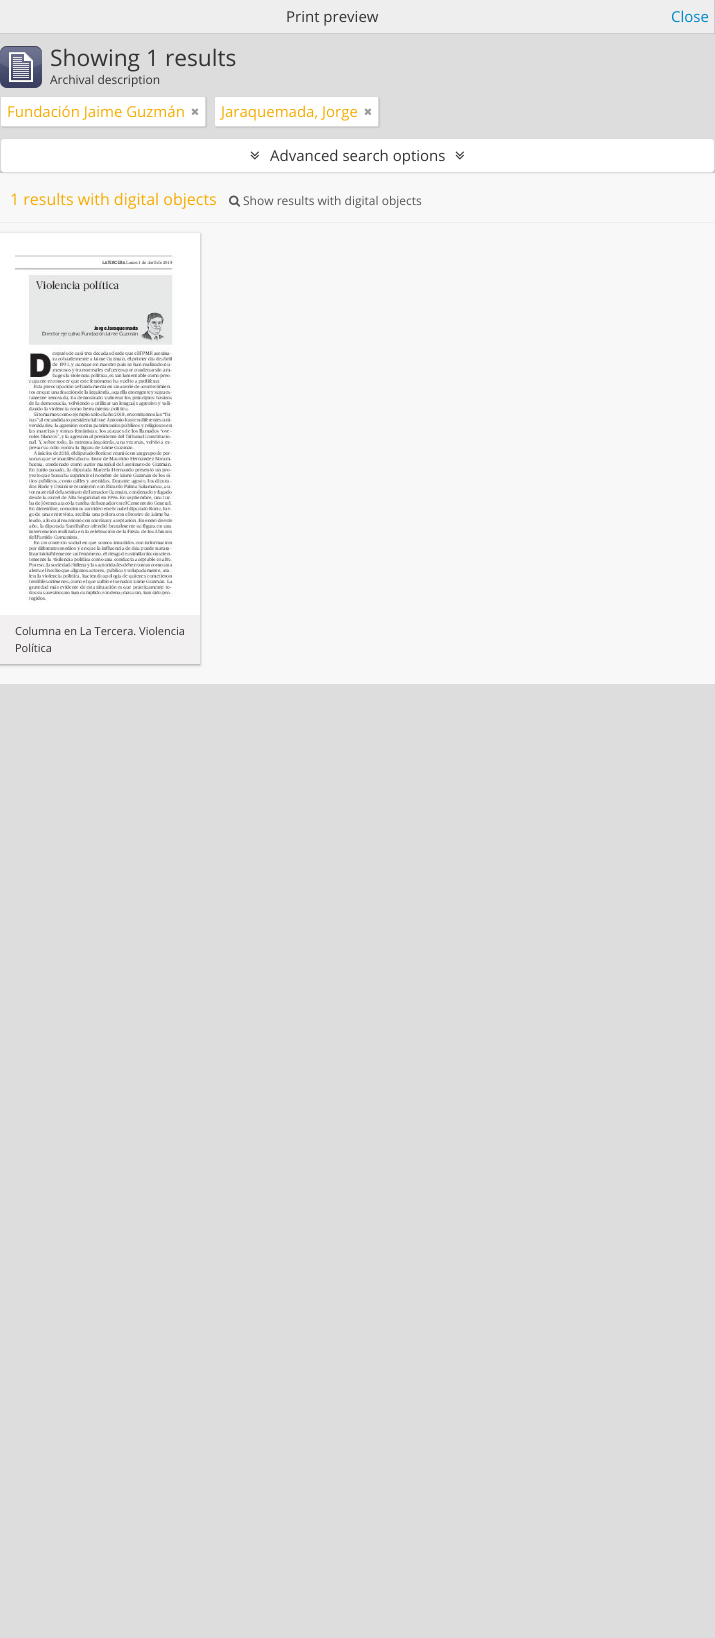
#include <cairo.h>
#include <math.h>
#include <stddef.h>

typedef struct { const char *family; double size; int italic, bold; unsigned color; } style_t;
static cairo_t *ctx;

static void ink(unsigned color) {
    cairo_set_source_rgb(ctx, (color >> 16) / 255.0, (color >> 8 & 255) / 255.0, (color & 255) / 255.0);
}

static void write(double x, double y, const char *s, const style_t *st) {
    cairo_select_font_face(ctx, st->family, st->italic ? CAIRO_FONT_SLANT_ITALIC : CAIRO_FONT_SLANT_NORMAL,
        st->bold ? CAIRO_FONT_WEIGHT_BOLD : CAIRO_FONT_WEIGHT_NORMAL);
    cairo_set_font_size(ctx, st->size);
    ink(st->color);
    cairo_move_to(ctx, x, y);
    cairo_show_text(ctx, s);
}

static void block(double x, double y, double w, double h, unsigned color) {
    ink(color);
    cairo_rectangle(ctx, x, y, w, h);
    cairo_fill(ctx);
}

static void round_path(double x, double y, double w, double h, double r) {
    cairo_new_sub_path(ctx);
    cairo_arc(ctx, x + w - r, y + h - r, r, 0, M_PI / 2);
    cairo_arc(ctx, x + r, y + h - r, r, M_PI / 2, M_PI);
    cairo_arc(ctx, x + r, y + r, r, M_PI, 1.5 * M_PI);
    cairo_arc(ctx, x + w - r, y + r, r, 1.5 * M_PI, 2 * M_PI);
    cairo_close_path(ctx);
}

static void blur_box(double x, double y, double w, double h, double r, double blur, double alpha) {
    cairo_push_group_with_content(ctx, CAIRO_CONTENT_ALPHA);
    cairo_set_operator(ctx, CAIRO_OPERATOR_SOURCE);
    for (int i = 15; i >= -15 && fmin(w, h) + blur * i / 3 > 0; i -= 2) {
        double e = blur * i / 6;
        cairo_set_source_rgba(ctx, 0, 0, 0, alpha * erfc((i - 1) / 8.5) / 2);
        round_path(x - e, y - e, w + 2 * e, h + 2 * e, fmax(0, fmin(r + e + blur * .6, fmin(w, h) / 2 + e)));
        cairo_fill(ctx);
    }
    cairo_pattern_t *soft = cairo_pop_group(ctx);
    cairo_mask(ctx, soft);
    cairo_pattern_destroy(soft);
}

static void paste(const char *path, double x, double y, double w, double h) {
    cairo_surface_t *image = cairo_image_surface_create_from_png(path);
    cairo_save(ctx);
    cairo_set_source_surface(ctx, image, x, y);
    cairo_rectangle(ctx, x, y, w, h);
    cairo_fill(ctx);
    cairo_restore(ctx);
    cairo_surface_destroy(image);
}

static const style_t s1 = {"Open Sans", 15, 0, 0, 0x333333};
static const style_t s2 = {"Open Sans", 15, 0, 0, 0x0088cc};
static const style_t s3 = {"Open Sans", 22.75, 0, 0, 0x333333};
static const style_t s4 = {"Open Sans", 12, 0, 0, 0x333333};
static const style_t s5 = {"Open Sans", 15, 0, 0, 0xf6ac00};
static const style_t s6 = {"Open Sans", 16, 0, 0, 0xf6ac00};
static const style_t s7 = {"Open Sans", 12, 0, 0, 0x555555};
static const style_t s8 = {"Open Sans", 11, 0, 0, 0x333333};

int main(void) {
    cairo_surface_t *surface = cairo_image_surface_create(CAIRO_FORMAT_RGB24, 715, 1638);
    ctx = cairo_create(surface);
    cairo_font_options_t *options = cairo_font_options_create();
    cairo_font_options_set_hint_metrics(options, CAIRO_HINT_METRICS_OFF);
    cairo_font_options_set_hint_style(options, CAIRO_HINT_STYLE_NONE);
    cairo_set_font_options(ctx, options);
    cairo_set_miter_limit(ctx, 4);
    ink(0xdddddd);
    cairo_paint(ctx);
    block(0, 0, 714, 33, 0xeeeeee);
    block(714, 0, 1, 34, 0xcccccc);
    block(0, 33, 715, 1, 0xcccccc);
    write(286, 22, "Print preview", &s1);
    write(671, 22, "Close", &s2);
    paste("pic1.png", 0, 46, 42, 42);
    write(50, 66, "Showing 1 results", &s3);
    write(50, 84, "Archival description", &s4);
    ink(0x000000);
    blur_box(1, 97, 206, 31, 2, 0.5, 0.1);
    ink(0xffffff);
    round_path(0.5, 96.5, 205, 30, 1.5);
    cairo_fill_preserve(ctx);
    ink(0xd9d9d9);
    cairo_set_line_width(ctx, 1);
    cairo_stroke(ctx);
    write(7, 117, "Fundación Jaime Guzmán", &s5);
    paste("pic2.png", 191, 108, 8, 7);
    ink(0x000000);
    blur_box(215, 97, 165, 31, 2, 0.5, 0.1);
    ink(0xffffff);
    round_path(214.5, 96.5, 164, 30, 1.5);
    cairo_fill_preserve(ctx);
    ink(0xd9d9d9);
    cairo_stroke(ctx);
    write(221, 117, "Jaraquemada, Jorge", &s5);
    paste("pic2.png", 364, 108, 8, 7);
    ink(0x000000);
    blur_box(0, 139, 715, 35, 4, 0.5, 0.2);
    ink(0xffffff);
    round_path(0.5, 138.5, 714, 34, 3.5);
    cairo_fill_preserve(ctx);
    ink(0xd9d9d9);
    cairo_stroke(ctx);
    paste("pic3.png", 250, 151, 9, 9);
    write(270, 161, "Advanced search options", &s1);
    paste("pic3.png", 455, 151, 9, 9);
    cairo_set_source_rgba(ctx, 1, 1, 1, 0.8);
    cairo_rectangle(ctx, 0, 173, 715, 511);
    cairo_fill(ctx);
    block(0, 222, 715, 1, 0xeeeeee);
    write(10, 205, "1 results with digital objects", &s6);
    paste("pic4.png", 229, 195, 12, 12);
    write(243, 205, "Show results with digital objects", &s7);
    ink(0x191919);
    blur_box(0, 234, 200, 431, 0, 1.5, 0.4);
    block(0, 233, 200, 382, 0xffffff);
    paste("pic5.png", 15, 255, 161, 348);
    block(0, 615, 200, 49, 0xf2f0f0);
    write(15, 635, "Columna en La Tercera. Violencia", &s8);
    write(15, 652, "Política", &s8);
    cairo_surface_write_to_png(surface, "screenshot.png");
    cairo_font_options_destroy(options);
    cairo_destroy(ctx);
    cairo_surface_destroy(surface);
    return 0;
}
